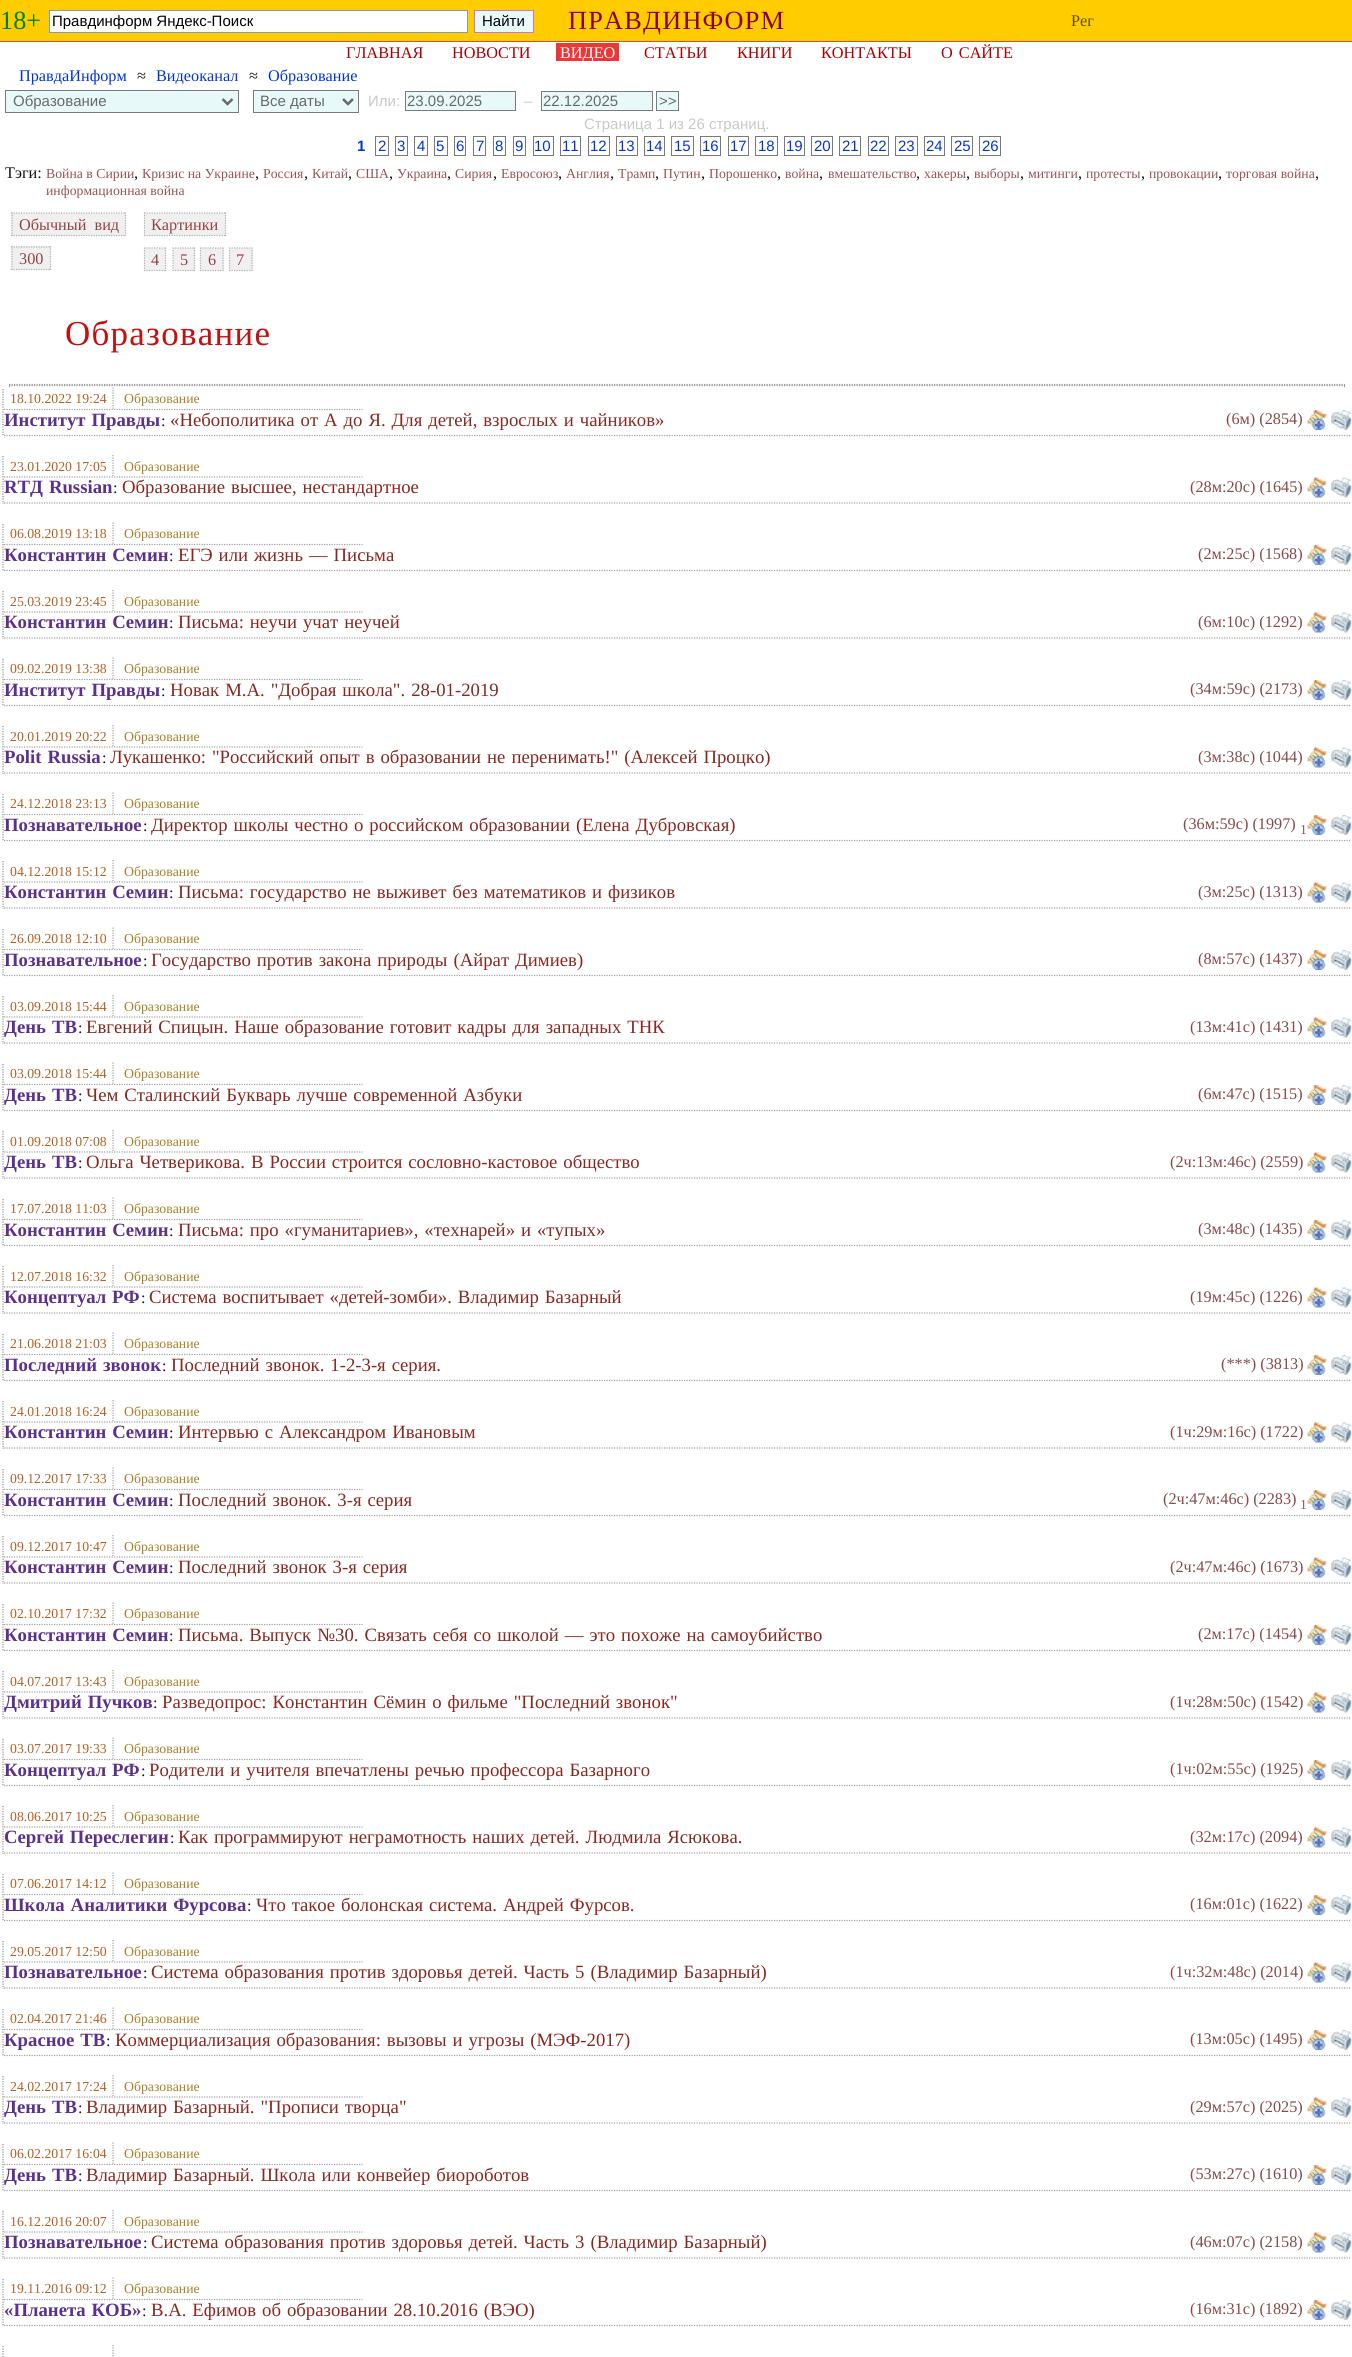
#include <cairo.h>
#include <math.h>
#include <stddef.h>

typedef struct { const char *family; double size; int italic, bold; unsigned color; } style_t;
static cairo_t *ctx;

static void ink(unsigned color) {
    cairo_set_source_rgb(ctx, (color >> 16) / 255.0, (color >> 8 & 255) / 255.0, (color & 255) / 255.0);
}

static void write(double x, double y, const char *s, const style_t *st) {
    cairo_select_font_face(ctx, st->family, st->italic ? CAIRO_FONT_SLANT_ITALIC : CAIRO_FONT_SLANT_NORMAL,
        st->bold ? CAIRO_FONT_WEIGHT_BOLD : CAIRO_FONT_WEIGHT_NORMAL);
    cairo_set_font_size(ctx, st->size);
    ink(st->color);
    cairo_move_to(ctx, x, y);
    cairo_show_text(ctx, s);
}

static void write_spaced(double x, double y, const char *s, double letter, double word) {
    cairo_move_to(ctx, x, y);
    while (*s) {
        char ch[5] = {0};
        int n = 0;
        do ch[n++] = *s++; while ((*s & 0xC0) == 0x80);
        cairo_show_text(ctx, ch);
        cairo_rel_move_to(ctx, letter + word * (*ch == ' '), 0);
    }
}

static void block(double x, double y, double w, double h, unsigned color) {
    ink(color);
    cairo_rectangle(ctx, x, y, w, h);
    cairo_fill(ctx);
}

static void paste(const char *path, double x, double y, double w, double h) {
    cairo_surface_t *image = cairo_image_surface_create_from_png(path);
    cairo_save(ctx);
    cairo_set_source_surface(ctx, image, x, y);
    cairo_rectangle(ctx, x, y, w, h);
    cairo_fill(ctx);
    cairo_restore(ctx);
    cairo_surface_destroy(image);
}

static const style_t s1 = {"Liberation Serif", 26.25, 0, 0, 0x008000};
static const style_t s2 = {"Liberation Sans", 15, 0, 0, 0x000000};
static const style_t s3 = {"Liberation Serif", 16.25, 0, 0, 0x5b490d};
static const style_t s4 = {"Liberation Serif", 16.25, 0, 0, 0xaa0000};
static const style_t s5 = {"Liberation Serif", 16.25, 0, 0, 0xffffff};
static const style_t s6 = {"Liberation Serif", 16.25, 0, 0, 0x0035d2};
static const style_t s7 = {"Liberation Serif", 16.25, 0, 0, 0x131313};
static const style_t s8 = {"Liberation Sans", 15, 0, 0, 0x696969};
static const style_t s9 = {"Liberation Sans", 15, 0, 0, 0xc8c8c8};
static const style_t s10 = {"Liberation Sans", 15, 0, 1, 0x0035d2};
static const style_t s11 = {"Liberation Sans", 15, 0, 0, 0x0035d2};
static const style_t s12 = {"Liberation Serif", 13.75, 0, 0, 0x985454};
static const style_t s13 = {"Liberation Serif", 16.25, 0, 0, 0x924343};
static const style_t s14 = {"Liberation Serif", 13.75, 0, 0, 0xb16125};
static const style_t s15 = {"Liberation Serif", 13.75, 0, 0, 0xa8802b};
static const style_t s16 = {"Liberation Serif", 16.25, 0, 0, 0x874949};
static const style_t s17 = {"Liberation Serif", 18.75, 0, 1, 0x5b318a};

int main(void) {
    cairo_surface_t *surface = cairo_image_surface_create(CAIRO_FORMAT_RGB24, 1352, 2357);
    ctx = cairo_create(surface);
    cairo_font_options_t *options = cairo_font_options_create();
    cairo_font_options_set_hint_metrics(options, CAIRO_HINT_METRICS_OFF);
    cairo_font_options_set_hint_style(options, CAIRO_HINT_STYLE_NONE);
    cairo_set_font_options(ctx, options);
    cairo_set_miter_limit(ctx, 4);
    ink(0xffffff);
    cairo_paint(ctx);
    block(0, 0, 1352, 41, 0xffcc00);
    write(0, 29, "18+", &s1);
    ink(0xffffff);
    cairo_rectangle(ctx, 49.5, 10.5, 418, 22);
    cairo_fill_preserve(ctx);
    ink(0x7f9db9);
    cairo_set_line_width(ctx, 1);
    cairo_stroke(ctx);
    write(52, 26, "Правдинформ Яндекс-Поиск", &s2);
    ink(0xe8f9f9);
    cairo_rectangle(ctx, 474.5, 10.5, 59, 22);
    cairo_fill_preserve(ctx);
    ink(0xc273f2);
    cairo_stroke(ctx);
    write(482, 26, "Найти", &s2);
    cairo_select_font_face(ctx, "Liberation Serif", CAIRO_FONT_SLANT_NORMAL, CAIRO_FONT_WEIGHT_NORMAL);
    cairo_set_font_size(ctx, 26.25);
    ink(0x8b0000);
    write_spaced(568, 29, "ПРАВДИНФОРМ", 1.25, 0);
    write(1071, 26, "Рег", &s3);
    block(0, 41, 1352, 1, 0xda4949);
    write(346, 58, "ГЛАВНАЯ", &s4);
    write(452, 58, "НОВОСТИ", &s4);
    block(556, 43, 63, 18, 0xec3737);
    write(560, 58, "ВИДЕО", &s5);
    write(644, 58, "СТАТЬИ", &s4);
    write(737, 58, "КНИГИ", &s4);
    write(821, 58, "КОНТАКТЫ", &s4);
    write_spaced(941, 58, "О САЙТЕ", 0, 2);
    write(19, 81, "ПравдаИнформ", &s6);
    write(137, 81, "≈", &s7);
    write(156, 81, "Видеоканал", &s6);
    write(249, 81, "≈", &s7);
    write(268, 81, "Образование", &s6);
    ink(0xe8f9f9);
    cairo_rectangle(ctx, 5.5, 90.5, 233, 22);
    cairo_fill_preserve(ctx);
    ink(0x7a7a7a);
    cairo_stroke(ctx);
    cairo_new_path(ctx);
    cairo_move_to(ctx, 222.5, 99);
    cairo_line_to(ctx, 227.5, 104);
    cairo_line_to(ctx, 232.5, 99);
    ink(0x696969);
    cairo_set_line_width(ctx, 2.5);
    cairo_stroke(ctx);
    write(13, 106, "Образование", &s8);
    ink(0xe8f9f9);
    cairo_rectangle(ctx, 253.5, 90.5, 105, 22);
    cairo_fill_preserve(ctx);
    ink(0x7a7a7a);
    cairo_set_line_width(ctx, 1);
    cairo_stroke(ctx);
    cairo_new_path(ctx);
    cairo_move_to(ctx, 343, 99);
    cairo_line_to(ctx, 348, 104);
    cairo_line_to(ctx, 353, 99);
    ink(0x696969);
    cairo_set_line_width(ctx, 2.5);
    cairo_stroke(ctx);
    write(260, 106, "Все даты", &s8);
    write(368, 106, "Или:", &s9);
    ink(0xe8f9f9);
    cairo_rectangle(ctx, 405.5, 91.5, 110, 19);
    cairo_fill_preserve(ctx);
    ink(0x7a7a7a);
    cairo_set_line_width(ctx, 1);
    cairo_stroke(ctx);
    write(407, 106, "23.09.2025", &s8);
    write(524, 106, "–", &s9);
    ink(0xe8f9f9);
    cairo_rectangle(ctx, 541.5, 91.5, 111, 19);
    cairo_fill_preserve(ctx);
    ink(0x7a7a7a);
    cairo_stroke(ctx);
    write(543, 106, "22.12.2025", &s8);
    ink(0xe8f9f9);
    cairo_rectangle(ctx, 656.5, 91.5, 22, 19);
    cairo_fill_preserve(ctx);
    ink(0x7a7a7a);
    cairo_stroke(ctx);
    write(659, 106, ">>", &s8);
    write(584, 129, "Страница 1 из 26 страниц.", &s9);
    write(357, 151, "1", &s10);
    cairo_rectangle(ctx, 375.5, 136.5, 13, 19);
    ink(0x7a7a7a);
    cairo_stroke(ctx);
    write(378, 151, "2", &s11);
    cairo_rectangle(ctx, 395.5, 136.5, 12, 19);
    ink(0x7a7a7a);
    cairo_stroke(ctx);
    write(397, 151, "3", &s11);
    cairo_rectangle(ctx, 414.5, 136.5, 13, 19);
    ink(0x7a7a7a);
    cairo_stroke(ctx);
    write(417, 151, "4", &s11);
    cairo_rectangle(ctx, 434.5, 136.5, 13, 19);
    ink(0x7a7a7a);
    cairo_stroke(ctx);
    write(436, 151, "5", &s11);
    cairo_rectangle(ctx, 454.5, 136.5, 11, 19);
    ink(0x7a7a7a);
    cairo_stroke(ctx);
    write(456, 151, "6", &s11);
    cairo_rectangle(ctx, 473.5, 136.5, 12, 19);
    ink(0x7a7a7a);
    cairo_stroke(ctx);
    write(476, 151, "7", &s11);
    cairo_rectangle(ctx, 493.5, 136.5, 12, 19);
    ink(0x7a7a7a);
    cairo_stroke(ctx);
    write(495, 151, "8", &s11);
    cairo_rectangle(ctx, 513.5, 136.5, 12, 19);
    ink(0x7a7a7a);
    cairo_stroke(ctx);
    write(515, 151, "9", &s11);
    cairo_rectangle(ctx, 533.5, 136.5, 20, 19);
    ink(0x7a7a7a);
    cairo_stroke(ctx);
    write(534, 151, "10", &s11);
    cairo_rectangle(ctx, 560.5, 136.5, 20, 19);
    ink(0x7a7a7a);
    cairo_stroke(ctx);
    write(562, 151, "11", &s11);
    cairo_rectangle(ctx, 588.5, 136.5, 21, 19);
    ink(0x7a7a7a);
    cairo_stroke(ctx);
    write(590, 151, "12", &s11);
    cairo_rectangle(ctx, 616.5, 136.5, 21, 19);
    ink(0x7a7a7a);
    cairo_stroke(ctx);
    write(618, 151, "13", &s11);
    cairo_rectangle(ctx, 644.5, 136.5, 20, 19);
    ink(0x7a7a7a);
    cairo_stroke(ctx);
    write(646, 151, "14", &s11);
    cairo_rectangle(ctx, 671.5, 136.5, 22, 19);
    ink(0x7a7a7a);
    cairo_stroke(ctx);
    write(674, 151, "15", &s11);
    cairo_rectangle(ctx, 700.5, 136.5, 20, 19);
    ink(0x7a7a7a);
    cairo_stroke(ctx);
    write(702, 151, "16", &s11);
    cairo_rectangle(ctx, 728.5, 136.5, 20, 19);
    ink(0x7a7a7a);
    cairo_stroke(ctx);
    write(730, 151, "17", &s11);
    cairo_rectangle(ctx, 755.5, 136.5, 22, 19);
    ink(0x7a7a7a);
    cairo_stroke(ctx);
    write(758, 151, "18", &s11);
    cairo_rectangle(ctx, 784.5, 136.5, 20, 19);
    ink(0x7a7a7a);
    cairo_stroke(ctx);
    write(786, 151, "19", &s11);
    cairo_rectangle(ctx, 811.5, 136.5, 21, 19);
    ink(0x7a7a7a);
    cairo_stroke(ctx);
    write(814, 151, "20", &s11);
    cairo_rectangle(ctx, 839.5, 136.5, 21, 19);
    ink(0x7a7a7a);
    cairo_stroke(ctx);
    write(842, 151, "21", &s11);
    cairo_rectangle(ctx, 868.5, 136.5, 20, 19);
    ink(0x7a7a7a);
    cairo_stroke(ctx);
    write(870, 151, "22", &s11);
    cairo_rectangle(ctx, 895.5, 136.5, 22, 19);
    ink(0x7a7a7a);
    cairo_stroke(ctx);
    write(898, 151, "23", &s11);
    cairo_rectangle(ctx, 924.5, 136.5, 20, 19);
    ink(0x7a7a7a);
    cairo_stroke(ctx);
    write(926, 151, "24", &s11);
    cairo_rectangle(ctx, 951.5, 136.5, 21, 19);
    ink(0x7a7a7a);
    cairo_stroke(ctx);
    write(954, 151, "25", &s11);
    cairo_rectangle(ctx, 979.5, 136.5, 21, 19);
    ink(0x7a7a7a);
    cairo_stroke(ctx);
    write(982, 151, "26", &s11);
    write(5, 178, "Тэги:", &s7);
    write(46, 178, "Война в Сирии", &s12);
    write(134, 178, ",", &s7);
    write(142, 178, "Кризис на Украине", &s12);
    write(255, 178, ",", &s7);
    write(263, 178, "Россия", &s12);
    write(304, 178, ",", &s7);
    write(312, 178, "Китай", &s12);
    write(348, 178, ",", &s7);
    write(356, 178, "США", &s12);
    write(389, 178, ",", &s7);
    write(397, 178, "Украина", &s12);
    write(447, 178, ",", &s7);
    write(455, 178, "Сирия", &s12);
    write(493, 178, ",", &s7);
    write(501, 178, "Евросоюз", &s12);
    write(558, 178, ",", &s7);
    write(566, 178, "Англия", &s12);
    write(610, 178, ",", &s7);
    write(618, 178, "Трамп", &s12);
    write(655, 178, ",", &s7);
    write(663, 178, "Путин", &s12);
    write(701, 178, ",", &s7);
    write(709, 178, "Порошенко", &s12);
    write(777, 178, ",", &s7);
    write(785, 178, "война", &s12);
    write(819, 178, ",", &s7);
    write(828, 178, "вмешательство", &s12);
    write(916, 178, ",", &s7);
    write(924, 178, "хакеры", &s12);
    write(966, 178, ",", &s7);
    write(974, 178, "выборы", &s12);
    write(1020, 178, ",", &s7);
    write(1028, 178, "митинги", &s12);
    write(1078, 178, ",", &s7);
    write(1086, 178, "протесты", &s12);
    write(1141, 178, ",", &s7);
    write(1149, 178, "провокации", &s12);
    write(1218, 178, ",", &s7);
    write(1226, 178, "торговая война", &s12);
    write(1315, 178, ",", &s7);
    write(46, 195, "информационная война", &s12);
    block(11, 213, 115, 23, 0xf0f0f0);
    cairo_set_font_size(ctx, 16.25);
    ink(0x924343);
    write_spaced(19, 230, "Обычный вид", 0, 4);
    cairo_new_path(ctx);
    cairo_move_to(ctx, 11, 213);
    cairo_line_to(ctx, 126, 213);
    ink(0xb2b2b2);
    cairo_set_line_width(ctx, 1.2);
    cairo_set_dash(ctx, (double[]){1.25, 1.25}, 2, 0);
    cairo_stroke(ctx);
    cairo_new_path(ctx);
    cairo_move_to(ctx, 125.5, 212.5);
    cairo_line_to(ctx, 125.5, 236);
    cairo_stroke(ctx);
    cairo_new_path(ctx);
    cairo_move_to(ctx, 11, 235.5);
    cairo_line_to(ctx, 126, 235.5);
    cairo_stroke(ctx);
    cairo_new_path(ctx);
    cairo_move_to(ctx, 12, 212.5);
    cairo_line_to(ctx, 12, 236);
    cairo_stroke(ctx);
    block(11, 246, 40, 24, 0xf0f0f0);
    cairo_new_path(ctx);
    cairo_move_to(ctx, 11, 247);
    cairo_line_to(ctx, 51, 247);
    cairo_move_to(ctx, 50.5, 246);
    cairo_line_to(ctx, 50.5, 270);
    cairo_move_to(ctx, 11, 269.5);
    cairo_line_to(ctx, 51, 269.5);
    cairo_move_to(ctx, 12, 246);
    cairo_line_to(ctx, 12, 270);
    ink(0xb2b2b2);
    cairo_stroke(ctx);
    write(19, 264, "300", &s13);
    block(144, 213, 82, 23, 0xf0f0f0);
    write(151, 230, "Картинки", &s13);
    cairo_new_path(ctx);
    cairo_move_to(ctx, 144, 213);
    cairo_line_to(ctx, 226, 213);
    ink(0xb2b2b2);
    cairo_stroke(ctx);
    cairo_new_path(ctx);
    cairo_move_to(ctx, 225.5, 212.5);
    cairo_line_to(ctx, 225.5, 236);
    cairo_stroke(ctx);
    cairo_new_path(ctx);
    cairo_move_to(ctx, 144, 235.5);
    cairo_line_to(ctx, 226, 235.5);
    cairo_stroke(ctx);
    cairo_new_path(ctx);
    cairo_move_to(ctx, 144.5, 212.5);
    cairo_line_to(ctx, 144.5, 236);
    cairo_stroke(ctx);
    block(144, 248, 22, 23, 0xf0f0f0);
    cairo_new_path(ctx);
    cairo_move_to(ctx, 144, 248);
    cairo_line_to(ctx, 166, 248);
    cairo_move_to(ctx, 165.5, 247.5);
    cairo_line_to(ctx, 165.5, 271);
    cairo_move_to(ctx, 144, 270.5);
    cairo_line_to(ctx, 166, 270.5);
    cairo_move_to(ctx, 144.5, 247.5);
    cairo_line_to(ctx, 144.5, 271);
    ink(0xb2b2b2);
    cairo_stroke(ctx);
    write(151, 265, "4", &s13);
    block(173, 248, 22, 23, 0xf0f0f0);
    cairo_new_path(ctx);
    cairo_move_to(ctx, 172.5, 248);
    cairo_line_to(ctx, 195, 248);
    cairo_move_to(ctx, 194.5, 247.5);
    cairo_line_to(ctx, 194.5, 271);
    cairo_move_to(ctx, 172.5, 270.5);
    cairo_line_to(ctx, 195, 270.5);
    cairo_move_to(ctx, 173, 247.5);
    cairo_line_to(ctx, 173, 271);
    ink(0xb2b2b2);
    cairo_stroke(ctx);
    write(180, 265, "5", &s13);
    block(200, 248, 24, 23, 0xf0f0f0);
    cairo_new_path(ctx);
    cairo_move_to(ctx, 200, 248);
    cairo_line_to(ctx, 224, 248);
    cairo_move_to(ctx, 223, 247.5);
    cairo_line_to(ctx, 223, 271);
    cairo_move_to(ctx, 200, 270.5);
    cairo_line_to(ctx, 224, 270.5);
    cairo_move_to(ctx, 200.5, 247.5);
    cairo_line_to(ctx, 200.5, 271);
    ink(0xb2b2b2);
    cairo_stroke(ctx);
    write(208, 265, "6", &s13);
    block(229, 248, 24, 23, 0xf0f0f0);
    cairo_new_path(ctx);
    cairo_move_to(ctx, 229, 248);
    cairo_line_to(ctx, 252.5, 248);
    cairo_move_to(ctx, 252, 247.5);
    cairo_line_to(ctx, 252, 271);
    cairo_move_to(ctx, 229, 270.5);
    cairo_line_to(ctx, 252.5, 270.5);
    cairo_move_to(ctx, 229.5, 247.5);
    cairo_line_to(ctx, 229.5, 271);
    ink(0xb2b2b2);
    cairo_stroke(ctx);
    write(236, 265, "7", &s13);
    cairo_set_font_size(ctx, 35);
    ink(0xc60f0f);
    write_spaced(65, 345, "Образование", 1.25, 0);
    cairo_new_path(ctx);
    cairo_move_to(ctx, 9, 384.5);
    cairo_line_to(ctx, 1345, 384.5);
    ink(0x999999);
    cairo_stroke(ctx);
    block(1344, 384, 1, 3, 0x999999);
    cairo_new_path(ctx);
    cairo_move_to(ctx, 9, 385.5);
    cairo_line_to(ctx, 1345, 385.5);
    cairo_stroke(ctx);
    block(9, 384, 1, 3, 0x999999);
    cairo_new_path(ctx);
    cairo_move_to(ctx, 3, 389);
    cairo_line_to(ctx, 3, 436);
    ink(0x919191);
    cairo_stroke(ctx);
    cairo_new_path(ctx);
    cairo_move_to(ctx, 4, 435.5);
    cairo_line_to(ctx, 1351, 435.5);
    ink(0xa2a2a2);
    cairo_stroke(ctx);
    cairo_new_path(ctx);
    cairo_move_to(ctx, 4, 409.5);
    cairo_line_to(ctx, 362.5, 409.5);
    cairo_stroke(ctx);
    write(10, 403, "18.10.2022 19:24", &s14);
    write(124, 403, "Образование", &s15);
    cairo_new_path(ctx);
    cairo_move_to(ctx, 113, 387.5);
    cairo_line_to(ctx, 113, 409);
    ink(0xa2a2a2);
    cairo_stroke(ctx);
    cairo_select_font_face(ctx, "Liberation Serif", CAIRO_FONT_SLANT_NORMAL, CAIRO_FONT_WEIGHT_BOLD);
    cairo_set_font_size(ctx, 18.75);
    ink(0x5b318a);
    write_spaced(4, 426, "Институт Правды", 0, 1.25);
    write(161, 426, ":", &s7);
    cairo_set_font_size(ctx, 18.75);
    ink(0x872821);
    write_spaced(170, 426, "«Небополитика от А до Я. Для детей, взрослых и чайников»", 0, 1.25);
    write(1226, 424, "(6м) (2854)", &s16);
    paste("pic1.png", 1307, 410, 20, 20);
    paste("pic2.png", 1331, 410, 21, 20);
    cairo_new_path(ctx);
    cairo_move_to(ctx, 3, 456);
    cairo_line_to(ctx, 3, 504);
    ink(0x919191);
    cairo_stroke(ctx);
    cairo_new_path(ctx);
    cairo_move_to(ctx, 4, 503);
    cairo_line_to(ctx, 1351, 503);
    ink(0xa2a2a2);
    cairo_stroke(ctx);
    cairo_new_path(ctx);
    cairo_move_to(ctx, 4, 477);
    cairo_line_to(ctx, 362.5, 477);
    cairo_stroke(ctx);
    write(10, 471, "23.01.2020 17:05", &s14);
    write(124, 471, "Образование", &s15);
    cairo_new_path(ctx);
    cairo_move_to(ctx, 113, 455);
    cairo_line_to(ctx, 113, 476);
    ink(0xa2a2a2);
    cairo_stroke(ctx);
    cairo_select_font_face(ctx, "Liberation Serif", CAIRO_FONT_SLANT_NORMAL, CAIRO_FONT_WEIGHT_BOLD);
    cairo_set_font_size(ctx, 18.75);
    ink(0x5b318a);
    write_spaced(4, 493, "RTД Russian", 0, 1.25);
    write(113, 493, ":", &s7);
    cairo_set_font_size(ctx, 18.75);
    ink(0x872821);
    write_spaced(122, 493, "Образование высшее, нестандартное", 0, 1.25);
    write(1190, 492, "(28м:20с) (1645)", &s16);
    paste("pic3.png", 1307, 477, 20, 21);
    paste("pic4.png", 1331, 477, 21, 21);
    cairo_new_path(ctx);
    cairo_move_to(ctx, 3, 524);
    cairo_line_to(ctx, 3, 571);
    ink(0x919191);
    cairo_stroke(ctx);
    cairo_new_path(ctx);
    cairo_move_to(ctx, 4, 570.5);
    cairo_line_to(ctx, 1351, 570.5);
    ink(0xa2a2a2);
    cairo_stroke(ctx);
    cairo_new_path(ctx);
    cairo_move_to(ctx, 4, 544.5);
    cairo_line_to(ctx, 362.5, 544.5);
    cairo_stroke(ctx);
    write(10, 538, "06.08.2019 13:18", &s14);
    write(124, 538, "Образование", &s15);
    cairo_new_path(ctx);
    cairo_move_to(ctx, 113, 522.5);
    cairo_line_to(ctx, 113, 544);
    ink(0xa2a2a2);
    cairo_stroke(ctx);
    cairo_select_font_face(ctx, "Liberation Serif", CAIRO_FONT_SLANT_NORMAL, CAIRO_FONT_WEIGHT_BOLD);
    cairo_set_font_size(ctx, 18.75);
    ink(0x5b318a);
    write_spaced(4, 561, "Константин Семин", 0, 1.25);
    write(169, 561, ":", &s7);
    cairo_set_font_size(ctx, 18.75);
    ink(0x872821);
    write_spaced(178, 561, "ЕГЭ или жизнь –– Письма", 0, 1.25);
    write(1198, 559, "(2м:25с) (1568)", &s16);
    paste("pic1.png", 1307, 545, 20, 20);
    paste("pic2.png", 1331, 545, 21, 20);
    cairo_new_path(ctx);
    cairo_move_to(ctx, 3, 591);
    cairo_line_to(ctx, 3, 639);
    ink(0x919191);
    cairo_stroke(ctx);
    cairo_new_path(ctx);
    cairo_move_to(ctx, 4, 638);
    cairo_line_to(ctx, 1351, 638);
    ink(0xa2a2a2);
    cairo_stroke(ctx);
    cairo_new_path(ctx);
    cairo_move_to(ctx, 4, 612);
    cairo_line_to(ctx, 362.5, 612);
    cairo_stroke(ctx);
    write(10, 606, "25.03.2019 23:45", &s14);
    write(124, 606, "Образование", &s15);
    cairo_new_path(ctx);
    cairo_move_to(ctx, 113, 590);
    cairo_line_to(ctx, 113, 611);
    ink(0xa2a2a2);
    cairo_stroke(ctx);
    cairo_select_font_face(ctx, "Liberation Serif", CAIRO_FONT_SLANT_NORMAL, CAIRO_FONT_WEIGHT_BOLD);
    cairo_set_font_size(ctx, 18.75);
    ink(0x5b318a);
    write_spaced(4, 628, "Константин Семин", 0, 1.25);
    write(169, 628, ":", &s7);
    cairo_set_font_size(ctx, 18.75);
    ink(0x872821);
    write_spaced(178, 628, "Письма: неучи учат неучей", 0, 1.25);
    write(1198, 627, "(6м:10с) (1292)", &s16);
    paste("pic3.png", 1307, 612, 20, 21);
    paste("pic4.png", 1331, 612, 21, 21);
    cairo_new_path(ctx);
    cairo_move_to(ctx, 3, 659);
    cairo_line_to(ctx, 3, 706);
    ink(0x919191);
    cairo_stroke(ctx);
    cairo_new_path(ctx);
    cairo_move_to(ctx, 4, 705.5);
    cairo_line_to(ctx, 1351, 705.5);
    ink(0xa2a2a2);
    cairo_stroke(ctx);
    cairo_new_path(ctx);
    cairo_move_to(ctx, 4, 679.5);
    cairo_line_to(ctx, 362.5, 679.5);
    cairo_stroke(ctx);
    write(10, 673, "09.02.2019 13:38", &s14);
    write(124, 673, "Образование", &s15);
    cairo_new_path(ctx);
    cairo_move_to(ctx, 113, 657.5);
    cairo_line_to(ctx, 113, 679);
    ink(0xa2a2a2);
    cairo_stroke(ctx);
    cairo_select_font_face(ctx, "Liberation Serif", CAIRO_FONT_SLANT_NORMAL, CAIRO_FONT_WEIGHT_BOLD);
    cairo_set_font_size(ctx, 18.75);
    ink(0x5b318a);
    write_spaced(4, 696, "Институт Правды", 0, 1.25);
    write(161, 696, ":", &s7);
    cairo_set_font_size(ctx, 18.75);
    ink(0x872821);
    write_spaced(170, 696, "Новак М.А. \"Добрая школа\". 28-01-2019", 0, 1.25);
    write(1190, 694, "(34м:59с) (2173)", &s16);
    paste("pic1.png", 1307, 680, 20, 20);
    paste("pic2.png", 1331, 680, 21, 20);
    cairo_new_path(ctx);
    cairo_move_to(ctx, 3, 726);
    cairo_line_to(ctx, 3, 774);
    ink(0x919191);
    cairo_stroke(ctx);
    cairo_new_path(ctx);
    cairo_move_to(ctx, 4, 773);
    cairo_line_to(ctx, 1351, 773);
    ink(0xa2a2a2);
    cairo_stroke(ctx);
    cairo_new_path(ctx);
    cairo_move_to(ctx, 4, 747);
    cairo_line_to(ctx, 362.5, 747);
    cairo_stroke(ctx);
    write(10, 741, "20.01.2019 20:22", &s14);
    write(124, 741, "Образование", &s15);
    cairo_new_path(ctx);
    cairo_move_to(ctx, 113, 725);
    cairo_line_to(ctx, 113, 746);
    ink(0xa2a2a2);
    cairo_stroke(ctx);
    cairo_select_font_face(ctx, "Liberation Serif", CAIRO_FONT_SLANT_NORMAL, CAIRO_FONT_WEIGHT_BOLD);
    cairo_set_font_size(ctx, 18.75);
    ink(0x5b318a);
    write_spaced(4, 763, "Polit Russia", 0, 1.25);
    write(102, 763, ":", &s7);
    cairo_set_font_size(ctx, 18.75);
    ink(0x872821);
    write_spaced(110, 763, "Лукашенко: \"Российский опыт в образовании не перенимать!\" (Алексей Процко)", 0, 1.25);
    write(1198, 762, "(3м:38с) (1044)", &s16);
    paste("pic3.png", 1307, 747, 20, 21);
    paste("pic4.png", 1331, 747, 21, 21);
    cairo_new_path(ctx);
    cairo_move_to(ctx, 3, 794);
    cairo_line_to(ctx, 3, 841);
    ink(0x919191);
    cairo_stroke(ctx);
    cairo_new_path(ctx);
    cairo_move_to(ctx, 4, 840.5);
    cairo_line_to(ctx, 1351, 840.5);
    ink(0xa2a2a2);
    cairo_stroke(ctx);
    cairo_new_path(ctx);
    cairo_move_to(ctx, 4, 814.5);
    cairo_line_to(ctx, 362.5, 814.5);
    cairo_stroke(ctx);
    write(10, 808, "24.12.2018 23:13", &s14);
    write(124, 808, "Образование", &s15);
    cairo_new_path(ctx);
    cairo_move_to(ctx, 113, 792.5);
    cairo_line_to(ctx, 113, 814);
    ink(0xa2a2a2);
    cairo_stroke(ctx);
    write(4, 831, "Познавательное", &s17);
    write(143, 831, ":", &s7);
    cairo_set_font_size(ctx, 18.75);
    ink(0x872821);
    write_spaced(151, 831, "Директор школы честно о российском образовании (Елена Дубровская)", 0, 1.25);
    write(1183, 829, "(36м:59с) (1997)", &s16);
    write(1300, 834, "1", &s12);
    paste("pic1.png", 1307, 815, 20, 20);
    paste("pic2.png", 1331, 815, 21, 20);
    cairo_new_path(ctx);
    cairo_move_to(ctx, 3, 861);
    cairo_line_to(ctx, 3, 909);
    ink(0x919191);
    cairo_stroke(ctx);
    cairo_new_path(ctx);
    cairo_move_to(ctx, 4, 908);
    cairo_line_to(ctx, 1351, 908);
    ink(0xa2a2a2);
    cairo_stroke(ctx);
    cairo_new_path(ctx);
    cairo_move_to(ctx, 4, 882);
    cairo_line_to(ctx, 362.5, 882);
    cairo_stroke(ctx);
    write(10, 876, "04.12.2018 15:12", &s14);
    write(124, 876, "Образование", &s15);
    cairo_new_path(ctx);
    cairo_move_to(ctx, 113, 860);
    cairo_line_to(ctx, 113, 881);
    ink(0xa2a2a2);
    cairo_stroke(ctx);
    cairo_select_font_face(ctx, "Liberation Serif", CAIRO_FONT_SLANT_NORMAL, CAIRO_FONT_WEIGHT_BOLD);
    cairo_set_font_size(ctx, 18.75);
    ink(0x5b318a);
    write_spaced(4, 898, "Константин Семин", 0, 1.25);
    write(169, 898, ":", &s7);
    cairo_set_font_size(ctx, 18.75);
    ink(0x872821);
    write_spaced(178, 898, "Письма: государство не выживет без математиков и физиков", 0, 1.25);
    write(1198, 897, "(3м:25с) (1313)", &s16);
    paste("pic3.png", 1307, 882, 20, 21);
    paste("pic4.png", 1331, 882, 21, 21);
    cairo_new_path(ctx);
    cairo_move_to(ctx, 3, 929);
    cairo_line_to(ctx, 3, 976);
    ink(0x919191);
    cairo_stroke(ctx);
    cairo_new_path(ctx);
    cairo_move_to(ctx, 4, 975.5);
    cairo_line_to(ctx, 1351, 975.5);
    ink(0xa2a2a2);
    cairo_stroke(ctx);
    cairo_new_path(ctx);
    cairo_move_to(ctx, 4, 949.5);
    cairo_line_to(ctx, 362.5, 949.5);
    cairo_stroke(ctx);
    write(10, 943, "26.09.2018 12:10", &s14);
    write(124, 943, "Образование", &s15);
    cairo_new_path(ctx);
    cairo_move_to(ctx, 113, 927.5);
    cairo_line_to(ctx, 113, 949);
    ink(0xa2a2a2);
    cairo_stroke(ctx);
    write(4, 966, "Познавательное", &s17);
    write(143, 966, ":", &s7);
    cairo_set_font_size(ctx, 18.75);
    ink(0x872821);
    write_spaced(151, 966, "Государство против закона природы (Айрат Димиев)", 0, 1.25);
    write(1198, 964, "(8м:57с) (1437)", &s16);
    paste("pic1.png", 1307, 950, 20, 20);
    paste("pic2.png", 1331, 950, 21, 20);
    cairo_new_path(ctx);
    cairo_move_to(ctx, 3, 996);
    cairo_line_to(ctx, 3, 1044);
    ink(0x919191);
    cairo_stroke(ctx);
    cairo_new_path(ctx);
    cairo_move_to(ctx, 4, 1043);
    cairo_line_to(ctx, 1351, 1043);
    ink(0xa2a2a2);
    cairo_stroke(ctx);
    cairo_new_path(ctx);
    cairo_move_to(ctx, 4, 1017);
    cairo_line_to(ctx, 362.5, 1017);
    cairo_stroke(ctx);
    write(10, 1011, "03.09.2018 15:44", &s14);
    write(124, 1011, "Образование", &s15);
    cairo_new_path(ctx);
    cairo_move_to(ctx, 113, 995);
    cairo_line_to(ctx, 113, 1016);
    ink(0xa2a2a2);
    cairo_stroke(ctx);
    cairo_select_font_face(ctx, "Liberation Serif", CAIRO_FONT_SLANT_NORMAL, CAIRO_FONT_WEIGHT_BOLD);
    cairo_set_font_size(ctx, 18.75);
    ink(0x5b318a);
    write_spaced(4, 1033, "День ТВ", 0, 1.25);
    write(78, 1033, ":", &s7);
    cairo_set_font_size(ctx, 18.75);
    ink(0x872821);
    write_spaced(86, 1033, "Евгений Спицын. Наше образование готовит кадры для западных ТНК", 0, 1.25);
    write(1190, 1032, "(13м:41с) (1431)", &s16);
    paste("pic3.png", 1307, 1017, 20, 21);
    paste("pic4.png", 1331, 1017, 21, 21);
    cairo_new_path(ctx);
    cairo_move_to(ctx, 3, 1064);
    cairo_line_to(ctx, 3, 1111);
    ink(0x919191);
    cairo_stroke(ctx);
    cairo_new_path(ctx);
    cairo_move_to(ctx, 4, 1110.5);
    cairo_line_to(ctx, 1351, 1110.5);
    ink(0xa2a2a2);
    cairo_stroke(ctx);
    cairo_new_path(ctx);
    cairo_move_to(ctx, 4, 1084.5);
    cairo_line_to(ctx, 362.5, 1084.5);
    cairo_stroke(ctx);
    write(10, 1078, "03.09.2018 15:44", &s14);
    write(124, 1078, "Образование", &s15);
    cairo_new_path(ctx);
    cairo_move_to(ctx, 113, 1062.5);
    cairo_line_to(ctx, 113, 1084);
    ink(0xa2a2a2);
    cairo_stroke(ctx);
    cairo_select_font_face(ctx, "Liberation Serif", CAIRO_FONT_SLANT_NORMAL, CAIRO_FONT_WEIGHT_BOLD);
    cairo_set_font_size(ctx, 18.75);
    ink(0x5b318a);
    write_spaced(4, 1101, "День ТВ", 0, 1.25);
    write(78, 1101, ":", &s7);
    cairo_set_font_size(ctx, 18.75);
    ink(0x872821);
    write_spaced(86, 1101, "Чем Сталинский Букварь лучше современной Азбуки", 0, 1.25);
    write(1198, 1099, "(6м:47с) (1515)", &s16);
    paste("pic1.png", 1307, 1085, 20, 20);
    paste("pic2.png", 1331, 1085, 21, 20);
    cairo_new_path(ctx);
    cairo_move_to(ctx, 3, 1131);
    cairo_line_to(ctx, 3, 1179);
    ink(0x919191);
    cairo_stroke(ctx);
    cairo_new_path(ctx);
    cairo_move_to(ctx, 4, 1178);
    cairo_line_to(ctx, 1351, 1178);
    ink(0xa2a2a2);
    cairo_stroke(ctx);
    cairo_new_path(ctx);
    cairo_move_to(ctx, 4, 1152);
    cairo_line_to(ctx, 362.5, 1152);
    cairo_stroke(ctx);
    write(10, 1146, "01.09.2018 07:08", &s14);
    write(124, 1146, "Образование", &s15);
    cairo_new_path(ctx);
    cairo_move_to(ctx, 113, 1130);
    cairo_line_to(ctx, 113, 1151);
    ink(0xa2a2a2);
    cairo_stroke(ctx);
    cairo_select_font_face(ctx, "Liberation Serif", CAIRO_FONT_SLANT_NORMAL, CAIRO_FONT_WEIGHT_BOLD);
    cairo_set_font_size(ctx, 18.75);
    ink(0x5b318a);
    write_spaced(4, 1168, "День ТВ", 0, 1.25);
    write(78, 1168, ":", &s7);
    cairo_set_font_size(ctx, 18.75);
    ink(0x872821);
    write_spaced(86, 1168, "Ольга Четверикова. В России строится сословно-кастовое общество", 0, 1.25);
    write(1170, 1167, "(2ч:13м:46с) (2559)", &s16);
    paste("pic3.png", 1307, 1152, 20, 21);
    paste("pic4.png", 1331, 1152, 21, 21);
    cairo_new_path(ctx);
    cairo_move_to(ctx, 3, 1199);
    cairo_line_to(ctx, 3, 1246);
    ink(0x919191);
    cairo_stroke(ctx);
    cairo_new_path(ctx);
    cairo_move_to(ctx, 4, 1245.5);
    cairo_line_to(ctx, 1351, 1245.5);
    ink(0xa2a2a2);
    cairo_stroke(ctx);
    cairo_new_path(ctx);
    cairo_move_to(ctx, 4, 1219.5);
    cairo_line_to(ctx, 362.5, 1219.5);
    cairo_stroke(ctx);
    write(10, 1213, "17.07.2018 11:03", &s14);
    write(124, 1213, "Образование", &s15);
    cairo_new_path(ctx);
    cairo_move_to(ctx, 113, 1197.5);
    cairo_line_to(ctx, 113, 1219);
    ink(0xa2a2a2);
    cairo_stroke(ctx);
    cairo_select_font_face(ctx, "Liberation Serif", CAIRO_FONT_SLANT_NORMAL, CAIRO_FONT_WEIGHT_BOLD);
    cairo_set_font_size(ctx, 18.75);
    ink(0x5b318a);
    write_spaced(4, 1236, "Константин Семин", 0, 1.25);
    write(169, 1236, ":", &s7);
    cairo_set_font_size(ctx, 18.75);
    ink(0x872821);
    write_spaced(178, 1236, "Письма: про «гуманитариев», «технарей» и «тупых»", 0, 1.25);
    write(1198, 1234, "(3м:48с) (1435)", &s16);
    paste("pic1.png", 1307, 1220, 20, 20);
    paste("pic2.png", 1331, 1220, 21, 20);
    cairo_new_path(ctx);
    cairo_move_to(ctx, 3, 1266);
    cairo_line_to(ctx, 3, 1314);
    ink(0x919191);
    cairo_stroke(ctx);
    cairo_new_path(ctx);
    cairo_move_to(ctx, 4, 1313);
    cairo_line_to(ctx, 1351, 1313);
    ink(0xa2a2a2);
    cairo_stroke(ctx);
    cairo_new_path(ctx);
    cairo_move_to(ctx, 4, 1287);
    cairo_line_to(ctx, 362.5, 1287);
    cairo_stroke(ctx);
    write(10, 1281, "12.07.2018 16:32", &s14);
    write(124, 1281, "Образование", &s15);
    cairo_new_path(ctx);
    cairo_move_to(ctx, 113, 1265);
    cairo_line_to(ctx, 113, 1286);
    ink(0xa2a2a2);
    cairo_stroke(ctx);
    cairo_select_font_face(ctx, "Liberation Serif", CAIRO_FONT_SLANT_NORMAL, CAIRO_FONT_WEIGHT_BOLD);
    cairo_set_font_size(ctx, 18.75);
    ink(0x5b318a);
    write_spaced(4, 1303, "Концептуал РФ", 0, 1.25);
    write(141, 1303, ":", &s7);
    cairo_set_font_size(ctx, 18.75);
    ink(0x872821);
    write_spaced(149, 1303, "Система воспитывает «детей-зомби». Владимир Базарный", 0, 1.25);
    write(1190, 1302, "(19м:45с) (1226)", &s16);
    paste("pic3.png", 1307, 1287, 20, 21);
    paste("pic4.png", 1331, 1287, 21, 21);
    cairo_new_path(ctx);
    cairo_move_to(ctx, 3, 1334);
    cairo_line_to(ctx, 3, 1381);
    ink(0x919191);
    cairo_stroke(ctx);
    cairo_new_path(ctx);
    cairo_move_to(ctx, 4, 1380.5);
    cairo_line_to(ctx, 1351, 1380.5);
    ink(0xa2a2a2);
    cairo_stroke(ctx);
    cairo_new_path(ctx);
    cairo_move_to(ctx, 4, 1354.5);
    cairo_line_to(ctx, 362.5, 1354.5);
    cairo_stroke(ctx);
    write(10, 1348, "21.06.2018 21:03", &s14);
    write(124, 1348, "Образование", &s15);
    cairo_new_path(ctx);
    cairo_move_to(ctx, 113, 1332.5);
    cairo_line_to(ctx, 113, 1354);
    ink(0xa2a2a2);
    cairo_stroke(ctx);
    cairo_select_font_face(ctx, "Liberation Serif", CAIRO_FONT_SLANT_NORMAL, CAIRO_FONT_WEIGHT_BOLD);
    cairo_set_font_size(ctx, 18.75);
    ink(0x5b318a);
    write_spaced(4, 1371, "Последний звонок", 0, 1.25);
    write(162, 1371, ":", &s7);
    cairo_set_font_size(ctx, 18.75);
    ink(0x872821);
    write_spaced(171, 1371, "Последний звонок. 1-2-3-я серия.", 0, 1.25);
    write(1221, 1369, "(***) (3813)", &s16);
    paste("pic1.png", 1307, 1355, 20, 20);
    paste("pic2.png", 1331, 1355, 21, 20);
    cairo_new_path(ctx);
    cairo_move_to(ctx, 3, 1401);
    cairo_line_to(ctx, 3, 1449);
    ink(0x919191);
    cairo_stroke(ctx);
    cairo_new_path(ctx);
    cairo_move_to(ctx, 4, 1448);
    cairo_line_to(ctx, 1351, 1448);
    ink(0xa2a2a2);
    cairo_stroke(ctx);
    cairo_new_path(ctx);
    cairo_move_to(ctx, 4, 1422);
    cairo_line_to(ctx, 362.5, 1422);
    cairo_stroke(ctx);
    write(10, 1416, "24.01.2018 16:24", &s14);
    write(124, 1416, "Образование", &s15);
    cairo_new_path(ctx);
    cairo_move_to(ctx, 113, 1400);
    cairo_line_to(ctx, 113, 1421);
    ink(0xa2a2a2);
    cairo_stroke(ctx);
    cairo_select_font_face(ctx, "Liberation Serif", CAIRO_FONT_SLANT_NORMAL, CAIRO_FONT_WEIGHT_BOLD);
    cairo_set_font_size(ctx, 18.75);
    ink(0x5b318a);
    write_spaced(4, 1438, "Константин Семин", 0, 1.25);
    write(169, 1438, ":", &s7);
    cairo_set_font_size(ctx, 18.75);
    ink(0x872821);
    write_spaced(178, 1438, "Интервью с Александром Ивановым", 0, 1.25);
    write(1170, 1437, "(1ч:29м:16с) (1722)", &s16);
    paste("pic3.png", 1307, 1422, 20, 21);
    paste("pic4.png", 1331, 1422, 21, 21);
    cairo_new_path(ctx);
    cairo_move_to(ctx, 3, 1469);
    cairo_line_to(ctx, 3, 1516);
    ink(0x919191);
    cairo_stroke(ctx);
    cairo_new_path(ctx);
    cairo_move_to(ctx, 4, 1515.5);
    cairo_line_to(ctx, 1351, 1515.5);
    ink(0xa2a2a2);
    cairo_stroke(ctx);
    cairo_new_path(ctx);
    cairo_move_to(ctx, 4, 1489.5);
    cairo_line_to(ctx, 362.5, 1489.5);
    cairo_stroke(ctx);
    write(10, 1483, "09.12.2017 17:33", &s14);
    write(124, 1483, "Образование", &s15);
    cairo_new_path(ctx);
    cairo_move_to(ctx, 113, 1467.5);
    cairo_line_to(ctx, 113, 1489);
    ink(0xa2a2a2);
    cairo_stroke(ctx);
    cairo_select_font_face(ctx, "Liberation Serif", CAIRO_FONT_SLANT_NORMAL, CAIRO_FONT_WEIGHT_BOLD);
    cairo_set_font_size(ctx, 18.75);
    ink(0x5b318a);
    write_spaced(4, 1506, "Константин Семин", 0, 1.25);
    write(169, 1506, ":", &s7);
    cairo_set_font_size(ctx, 18.75);
    ink(0x872821);
    write_spaced(178, 1506, "Последний звонок. 3-я серия", 0, 1.25);
    write(1163, 1504, "(2ч:47м:46с) (2283)", &s16);
    write(1300, 1509, "1", &s12);
    paste("pic1.png", 1307, 1490, 20, 20);
    paste("pic2.png", 1331, 1490, 21, 20);
    cairo_new_path(ctx);
    cairo_move_to(ctx, 3, 1536);
    cairo_line_to(ctx, 3, 1584);
    ink(0x919191);
    cairo_stroke(ctx);
    cairo_new_path(ctx);
    cairo_move_to(ctx, 4, 1583);
    cairo_line_to(ctx, 1351, 1583);
    ink(0xa2a2a2);
    cairo_stroke(ctx);
    cairo_new_path(ctx);
    cairo_move_to(ctx, 4, 1557);
    cairo_line_to(ctx, 362.5, 1557);
    cairo_stroke(ctx);
    write(10, 1551, "09.12.2017 10:47", &s14);
    write(124, 1551, "Образование", &s15);
    cairo_new_path(ctx);
    cairo_move_to(ctx, 113, 1535);
    cairo_line_to(ctx, 113, 1556);
    ink(0xa2a2a2);
    cairo_stroke(ctx);
    cairo_select_font_face(ctx, "Liberation Serif", CAIRO_FONT_SLANT_NORMAL, CAIRO_FONT_WEIGHT_BOLD);
    cairo_set_font_size(ctx, 18.75);
    ink(0x5b318a);
    write_spaced(4, 1573, "Константин Семин", 0, 1.25);
    write(169, 1573, ":", &s7);
    cairo_set_font_size(ctx, 18.75);
    ink(0x872821);
    write_spaced(178, 1573, "Последний звонок 3-я серия", 0, 1.25);
    write(1170, 1572, "(2ч:47м:46с) (1673)", &s16);
    paste("pic5.png", 1307, 1557, 20, 21);
    paste("pic6.png", 1331, 1557, 21, 21);
    cairo_new_path(ctx);
    cairo_move_to(ctx, 3, 1604);
    cairo_line_to(ctx, 3, 1651);
    ink(0x919191);
    cairo_stroke(ctx);
    cairo_new_path(ctx);
    cairo_move_to(ctx, 4, 1650.5);
    cairo_line_to(ctx, 1351, 1650.5);
    ink(0xa2a2a2);
    cairo_stroke(ctx);
    cairo_new_path(ctx);
    cairo_move_to(ctx, 4, 1624.5);
    cairo_line_to(ctx, 362.5, 1624.5);
    cairo_stroke(ctx);
    write(10, 1618, "02.10.2017 17:32", &s14);
    write(124, 1618, "Образование", &s15);
    cairo_new_path(ctx);
    cairo_move_to(ctx, 113, 1602.5);
    cairo_line_to(ctx, 113, 1624);
    ink(0xa2a2a2);
    cairo_stroke(ctx);
    cairo_select_font_face(ctx, "Liberation Serif", CAIRO_FONT_SLANT_NORMAL, CAIRO_FONT_WEIGHT_BOLD);
    cairo_set_font_size(ctx, 18.75);
    ink(0x5b318a);
    write_spaced(4, 1641, "Константин Семин", 0, 1.25);
    write(169, 1641, ":", &s7);
    cairo_set_font_size(ctx, 18.75);
    ink(0x872821);
    write_spaced(178, 1641, "Письма. Выпуск №30. Связать себя со школой — это похоже на самоубийство", 0, 1.25);
    write(1198, 1639, "(2м:17с) (1454)", &s16);
    paste("pic1.png", 1307, 1625, 20, 20);
    paste("pic2.png", 1331, 1625, 21, 20);
    cairo_new_path(ctx);
    cairo_move_to(ctx, 3, 1671);
    cairo_line_to(ctx, 3, 1719);
    ink(0x919191);
    cairo_stroke(ctx);
    cairo_new_path(ctx);
    cairo_move_to(ctx, 4, 1718);
    cairo_line_to(ctx, 1351, 1718);
    ink(0xa2a2a2);
    cairo_stroke(ctx);
    cairo_new_path(ctx);
    cairo_move_to(ctx, 4, 1692);
    cairo_line_to(ctx, 362.5, 1692);
    cairo_stroke(ctx);
    write(10, 1686, "04.07.2017 13:43", &s14);
    write(124, 1686, "Образование", &s15);
    cairo_new_path(ctx);
    cairo_move_to(ctx, 113, 1670);
    cairo_line_to(ctx, 113, 1691);
    ink(0xa2a2a2);
    cairo_stroke(ctx);
    cairo_select_font_face(ctx, "Liberation Serif", CAIRO_FONT_SLANT_NORMAL, CAIRO_FONT_WEIGHT_BOLD);
    cairo_set_font_size(ctx, 18.75);
    ink(0x5b318a);
    write_spaced(4, 1708, "Дмитрий Пучков", 0, 1.25);
    write(153, 1708, ":", &s7);
    cairo_set_font_size(ctx, 18.75);
    ink(0x872821);
    write_spaced(162, 1708, "Разведопрос: Константин Сёмин о фильме \"Последний звонок\"", 0, 1.25);
    write(1170, 1707, "(1ч:28м:50с) (1542)", &s16);
    paste("pic3.png", 1307, 1692, 20, 21);
    paste("pic4.png", 1331, 1692, 21, 21);
    cairo_new_path(ctx);
    cairo_move_to(ctx, 3, 1739);
    cairo_line_to(ctx, 3, 1786);
    ink(0x919191);
    cairo_stroke(ctx);
    cairo_new_path(ctx);
    cairo_move_to(ctx, 4, 1785.5);
    cairo_line_to(ctx, 1351, 1785.5);
    ink(0xa2a2a2);
    cairo_stroke(ctx);
    cairo_new_path(ctx);
    cairo_move_to(ctx, 4, 1759.5);
    cairo_line_to(ctx, 362.5, 1759.5);
    cairo_stroke(ctx);
    write(10, 1753, "03.07.2017 19:33", &s14);
    write(124, 1753, "Образование", &s15);
    cairo_new_path(ctx);
    cairo_move_to(ctx, 113, 1737.5);
    cairo_line_to(ctx, 113, 1759);
    ink(0xa2a2a2);
    cairo_stroke(ctx);
    cairo_select_font_face(ctx, "Liberation Serif", CAIRO_FONT_SLANT_NORMAL, CAIRO_FONT_WEIGHT_BOLD);
    cairo_set_font_size(ctx, 18.75);
    ink(0x5b318a);
    write_spaced(4, 1776, "Концептуал РФ", 0, 1.25);
    write(141, 1776, ":", &s7);
    cairo_set_font_size(ctx, 18.75);
    ink(0x872821);
    write_spaced(149, 1776, "Родители и учителя впечатлены речью профессора Базарного", 0, 1.25);
    write(1170, 1774, "(1ч:02м:55с) (1925)", &s16);
    paste("pic1.png", 1307, 1760, 20, 20);
    paste("pic2.png", 1331, 1760, 21, 20);
    cairo_new_path(ctx);
    cairo_move_to(ctx, 3, 1806);
    cairo_line_to(ctx, 3, 1854);
    ink(0x919191);
    cairo_stroke(ctx);
    cairo_new_path(ctx);
    cairo_move_to(ctx, 4, 1853);
    cairo_line_to(ctx, 1351, 1853);
    ink(0xa2a2a2);
    cairo_stroke(ctx);
    cairo_new_path(ctx);
    cairo_move_to(ctx, 4, 1827);
    cairo_line_to(ctx, 362.5, 1827);
    cairo_stroke(ctx);
    write(10, 1821, "08.06.2017 10:25", &s14);
    write(124, 1821, "Образование", &s15);
    cairo_new_path(ctx);
    cairo_move_to(ctx, 113, 1805);
    cairo_line_to(ctx, 113, 1826);
    ink(0xa2a2a2);
    cairo_stroke(ctx);
    cairo_select_font_face(ctx, "Liberation Serif", CAIRO_FONT_SLANT_NORMAL, CAIRO_FONT_WEIGHT_BOLD);
    cairo_set_font_size(ctx, 18.75);
    ink(0x5b318a);
    write_spaced(4, 1843, "Сергей Переслегин", 0, 1.25);
    write(170, 1843, ":", &s7);
    cairo_set_font_size(ctx, 18.75);
    ink(0x872821);
    write_spaced(178, 1843, "Как программируют неграмотность наших детей. Людмила Ясюкова.", 0, 1.25);
    write(1190, 1842, "(32м:17с) (2094)", &s16);
    paste("pic3.png", 1307, 1827, 20, 21);
    paste("pic4.png", 1331, 1827, 21, 21);
    cairo_new_path(ctx);
    cairo_move_to(ctx, 3, 1874);
    cairo_line_to(ctx, 3, 1921);
    ink(0x919191);
    cairo_stroke(ctx);
    cairo_new_path(ctx);
    cairo_move_to(ctx, 4, 1920.5);
    cairo_line_to(ctx, 1351, 1920.5);
    ink(0xa2a2a2);
    cairo_stroke(ctx);
    cairo_new_path(ctx);
    cairo_move_to(ctx, 4, 1894.5);
    cairo_line_to(ctx, 362.5, 1894.5);
    cairo_stroke(ctx);
    write(10, 1888, "07.06.2017 14:12", &s14);
    write(124, 1888, "Образование", &s15);
    cairo_new_path(ctx);
    cairo_move_to(ctx, 113, 1872.5);
    cairo_line_to(ctx, 113, 1894);
    ink(0xa2a2a2);
    cairo_stroke(ctx);
    cairo_select_font_face(ctx, "Liberation Serif", CAIRO_FONT_SLANT_NORMAL, CAIRO_FONT_WEIGHT_BOLD);
    cairo_set_font_size(ctx, 18.75);
    ink(0x5b318a);
    write_spaced(4, 1911, "Школа Аналитики Фурсова", 0, 1.25);
    write(247, 1911, ":", &s7);
    cairo_set_font_size(ctx, 18.75);
    ink(0x872821);
    write_spaced(256, 1911, "Что такое болонская система. Андрей Фурсов.", 0, 1.25);
    write(1190, 1909, "(16м:01с) (1622)", &s16);
    paste("pic1.png", 1307, 1895, 20, 20);
    paste("pic2.png", 1331, 1895, 21, 20);
    cairo_new_path(ctx);
    cairo_move_to(ctx, 3, 1941);
    cairo_line_to(ctx, 3, 1989);
    ink(0x919191);
    cairo_stroke(ctx);
    cairo_new_path(ctx);
    cairo_move_to(ctx, 4, 1988);
    cairo_line_to(ctx, 1351, 1988);
    ink(0xa2a2a2);
    cairo_stroke(ctx);
    cairo_new_path(ctx);
    cairo_move_to(ctx, 4, 1962);
    cairo_line_to(ctx, 362.5, 1962);
    cairo_stroke(ctx);
    write(10, 1956, "29.05.2017 12:50", &s14);
    write(124, 1956, "Образование", &s15);
    cairo_new_path(ctx);
    cairo_move_to(ctx, 113, 1940);
    cairo_line_to(ctx, 113, 1961);
    ink(0xa2a2a2);
    cairo_stroke(ctx);
    write(4, 1978, "Познавательное", &s17);
    write(143, 1978, ":", &s7);
    cairo_set_font_size(ctx, 18.75);
    ink(0x872821);
    write_spaced(151, 1978, "Система образования против здоровья детей. Часть 5 (Владимир Базарный)", 0, 1.25);
    write(1170, 1977, "(1ч:32м:48с) (2014)", &s16);
    paste("pic3.png", 1307, 1962, 20, 21);
    paste("pic4.png", 1331, 1962, 21, 21);
    cairo_new_path(ctx);
    cairo_move_to(ctx, 3, 2009);
    cairo_line_to(ctx, 3, 2056);
    ink(0x919191);
    cairo_stroke(ctx);
    cairo_new_path(ctx);
    cairo_move_to(ctx, 4, 2055.5);
    cairo_line_to(ctx, 1351, 2055.5);
    ink(0xa2a2a2);
    cairo_stroke(ctx);
    cairo_new_path(ctx);
    cairo_move_to(ctx, 4, 2029.5);
    cairo_line_to(ctx, 362.5, 2029.5);
    cairo_stroke(ctx);
    write(10, 2023, "02.04.2017 21:46", &s14);
    write(124, 2023, "Образование", &s15);
    cairo_new_path(ctx);
    cairo_move_to(ctx, 113, 2007.5);
    cairo_line_to(ctx, 113, 2029);
    ink(0xa2a2a2);
    cairo_stroke(ctx);
    cairo_select_font_face(ctx, "Liberation Serif", CAIRO_FONT_SLANT_NORMAL, CAIRO_FONT_WEIGHT_BOLD);
    cairo_set_font_size(ctx, 18.75);
    ink(0x5b318a);
    write_spaced(4, 2046, "Красное ТВ", 0, 1.25);
    write(106, 2046, ":", &s7);
    cairo_set_font_size(ctx, 18.75);
    ink(0x872821);
    write_spaced(115, 2046, "Коммерциализация образования: вызовы и угрозы (МЭФ-2017)", 0, 1.25);
    write(1190, 2044, "(13м:05с) (1495)", &s16);
    paste("pic1.png", 1307, 2030, 20, 20);
    paste("pic2.png", 1331, 2030, 21, 20);
    cairo_new_path(ctx);
    cairo_move_to(ctx, 3, 2076);
    cairo_line_to(ctx, 3, 2124);
    ink(0x919191);
    cairo_stroke(ctx);
    cairo_new_path(ctx);
    cairo_move_to(ctx, 4, 2123);
    cairo_line_to(ctx, 1351, 2123);
    ink(0xa2a2a2);
    cairo_stroke(ctx);
    cairo_new_path(ctx);
    cairo_move_to(ctx, 4, 2097);
    cairo_line_to(ctx, 362.5, 2097);
    cairo_stroke(ctx);
    write(10, 2091, "24.02.2017 17:24", &s14);
    write(124, 2091, "Образование", &s15);
    cairo_new_path(ctx);
    cairo_move_to(ctx, 113, 2075);
    cairo_line_to(ctx, 113, 2096);
    ink(0xa2a2a2);
    cairo_stroke(ctx);
    cairo_select_font_face(ctx, "Liberation Serif", CAIRO_FONT_SLANT_NORMAL, CAIRO_FONT_WEIGHT_BOLD);
    cairo_set_font_size(ctx, 18.75);
    ink(0x5b318a);
    write_spaced(4, 2113, "День ТВ", 0, 1.25);
    write(78, 2113, ":", &s7);
    cairo_set_font_size(ctx, 18.75);
    ink(0x872821);
    write_spaced(86, 2113, "Владимир Базарный. \"Прописи творца\"", 0, 1.25);
    write(1190, 2112, "(29м:57с) (2025)", &s16);
    paste("pic3.png", 1307, 2097, 20, 21);
    paste("pic4.png", 1331, 2097, 21, 21);
    cairo_new_path(ctx);
    cairo_move_to(ctx, 3, 2144);
    cairo_line_to(ctx, 3, 2191);
    ink(0x919191);
    cairo_stroke(ctx);
    cairo_new_path(ctx);
    cairo_move_to(ctx, 4, 2190.5);
    cairo_line_to(ctx, 1351, 2190.5);
    ink(0xa2a2a2);
    cairo_stroke(ctx);
    cairo_new_path(ctx);
    cairo_move_to(ctx, 4, 2164.5);
    cairo_line_to(ctx, 362.5, 2164.5);
    cairo_stroke(ctx);
    write(10, 2158, "06.02.2017 16:04", &s14);
    write(124, 2158, "Образование", &s15);
    cairo_new_path(ctx);
    cairo_move_to(ctx, 113, 2142.5);
    cairo_line_to(ctx, 113, 2164);
    ink(0xa2a2a2);
    cairo_stroke(ctx);
    cairo_select_font_face(ctx, "Liberation Serif", CAIRO_FONT_SLANT_NORMAL, CAIRO_FONT_WEIGHT_BOLD);
    cairo_set_font_size(ctx, 18.75);
    ink(0x5b318a);
    write_spaced(4, 2181, "День ТВ", 0, 1.25);
    write(78, 2181, ":", &s7);
    cairo_set_font_size(ctx, 18.75);
    ink(0x872821);
    write_spaced(86, 2181, "Владимир Базарный. Школа или конвейер биороботов", 0, 1.25);
    write(1190, 2179, "(53м:27с) (1610)", &s16);
    paste("pic1.png", 1307, 2165, 20, 20);
    paste("pic2.png", 1331, 2165, 21, 20);
    cairo_new_path(ctx);
    cairo_move_to(ctx, 3, 2211);
    cairo_line_to(ctx, 3, 2259);
    ink(0x919191);
    cairo_stroke(ctx);
    cairo_new_path(ctx);
    cairo_move_to(ctx, 4, 2258);
    cairo_line_to(ctx, 1351, 2258);
    ink(0xa2a2a2);
    cairo_stroke(ctx);
    cairo_new_path(ctx);
    cairo_move_to(ctx, 4, 2232);
    cairo_line_to(ctx, 362.5, 2232);
    cairo_stroke(ctx);
    write(10, 2226, "16.12.2016 20:07", &s14);
    write(124, 2226, "Образование", &s15);
    cairo_new_path(ctx);
    cairo_move_to(ctx, 113, 2210);
    cairo_line_to(ctx, 113, 2231);
    ink(0xa2a2a2);
    cairo_stroke(ctx);
    write(4, 2248, "Познавательное", &s17);
    write(143, 2248, ":", &s7);
    cairo_set_font_size(ctx, 18.75);
    ink(0x872821);
    write_spaced(151, 2248, "Система образования против здоровья детей. Часть 3 (Владимир Базарный)", 0, 1.25);
    write(1190, 2247, "(46м:07с) (2158)", &s16);
    paste("pic3.png", 1307, 2232, 20, 21);
    paste("pic4.png", 1331, 2232, 21, 21);
    cairo_new_path(ctx);
    cairo_move_to(ctx, 3, 2279);
    cairo_line_to(ctx, 3, 2326);
    ink(0x919191);
    cairo_stroke(ctx);
    cairo_new_path(ctx);
    cairo_move_to(ctx, 4, 2325.5);
    cairo_line_to(ctx, 1351, 2325.5);
    ink(0xa2a2a2);
    cairo_stroke(ctx);
    cairo_new_path(ctx);
    cairo_move_to(ctx, 4, 2299.5);
    cairo_line_to(ctx, 362.5, 2299.5);
    cairo_stroke(ctx);
    write(10, 2293, "19.11.2016 09:12", &s14);
    write(124, 2293, "Образование", &s15);
    cairo_new_path(ctx);
    cairo_move_to(ctx, 113, 2277.5);
    cairo_line_to(ctx, 113, 2299);
    ink(0xa2a2a2);
    cairo_stroke(ctx);
    cairo_select_font_face(ctx, "Liberation Serif", CAIRO_FONT_SLANT_NORMAL, CAIRO_FONT_WEIGHT_BOLD);
    cairo_set_font_size(ctx, 18.75);
    ink(0x5b318a);
    write_spaced(4, 2316, "«Планета КОБ»", 0, 1.25);
    write(142, 2316, ":", &s7);
    cairo_set_font_size(ctx, 18.75);
    ink(0x872821);
    write_spaced(151, 2316, "В.А. Ефимов об образовании 28.10.2016 (ВЭО)", 0, 1.25);
    write(1190, 2314, "(16м:31с) (1892)", &s16);
    paste("pic1.png", 1307, 2300, 20, 20);
    paste("pic2.png", 1331, 2300, 21, 20);
    cairo_new_path(ctx);
    cairo_move_to(ctx, 3, 2346);
    cairo_line_to(ctx, 3, 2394);
    ink(0x919191);
    cairo_stroke(ctx);
    cairo_new_path(ctx);
    cairo_move_to(ctx, 113, 2345);
    cairo_line_to(ctx, 113, 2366);
    ink(0xa2a2a2);
    cairo_stroke(ctx);
    cairo_surface_write_to_png(surface, "screenshot.png");
    cairo_font_options_destroy(options);
    cairo_destroy(ctx);
    cairo_surface_destroy(surface);
    return 0;
}
